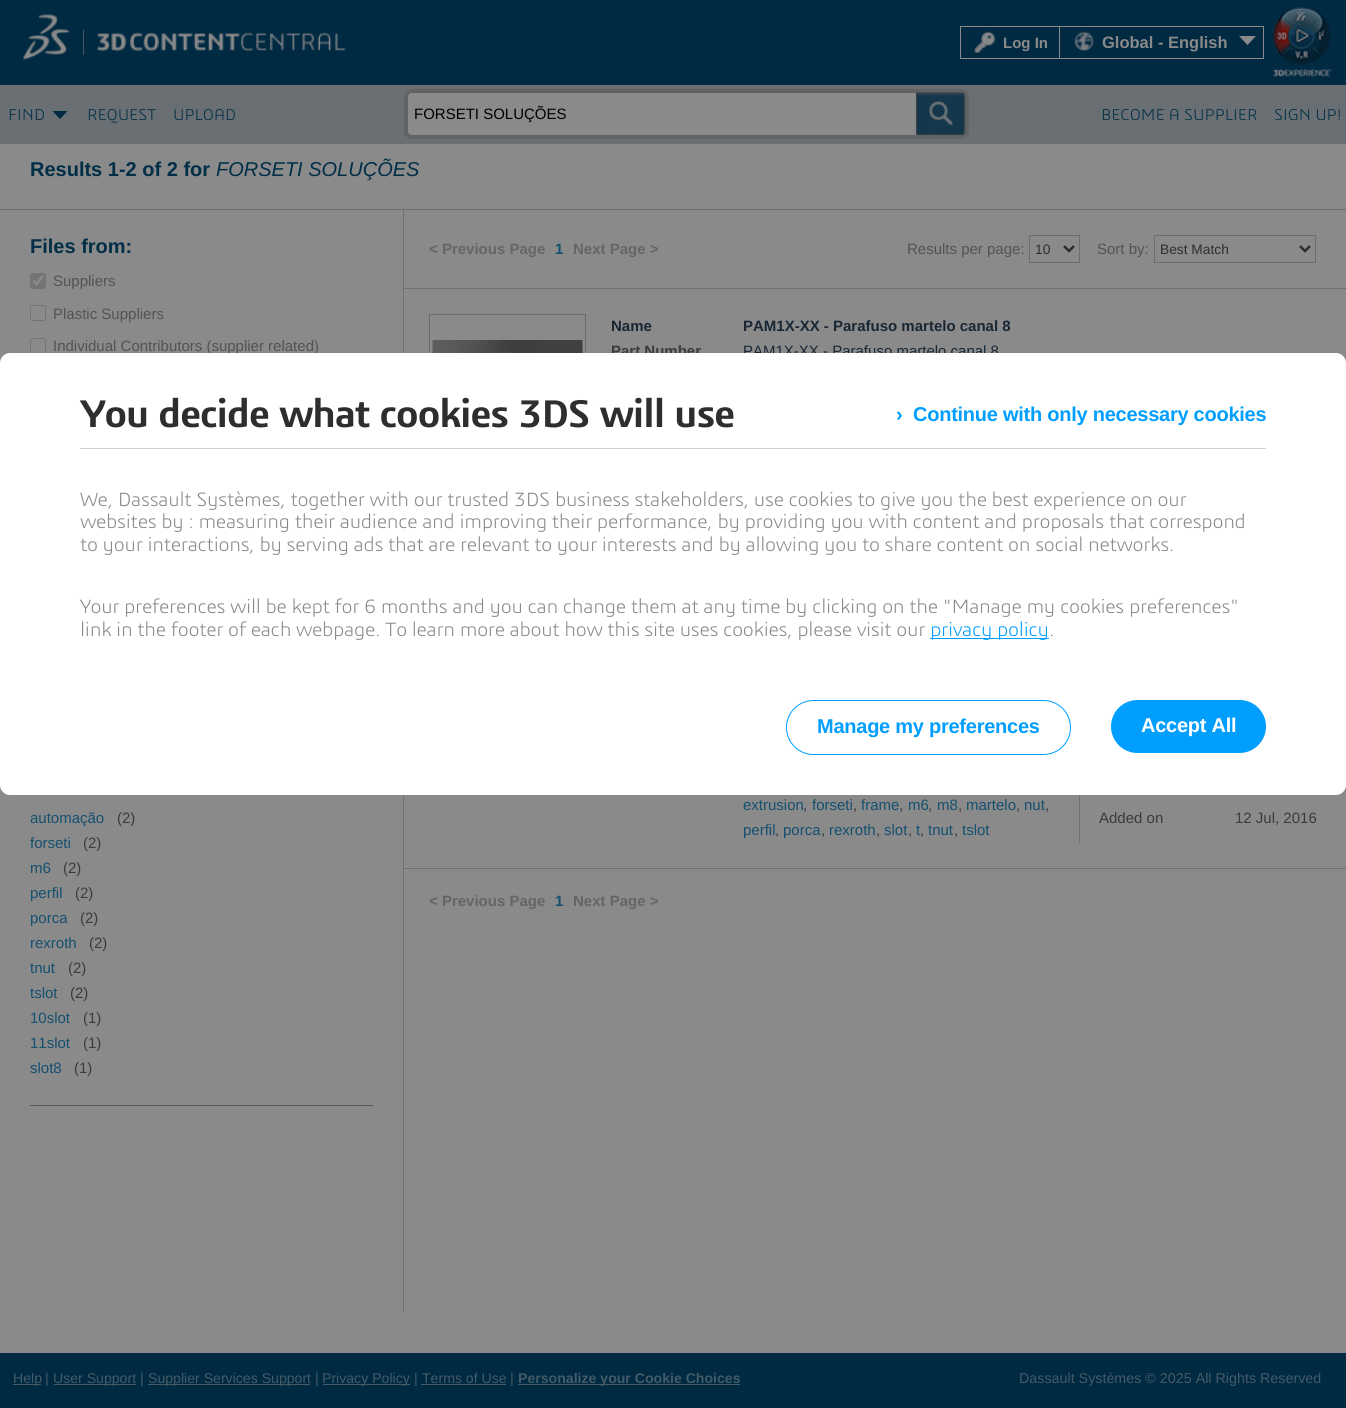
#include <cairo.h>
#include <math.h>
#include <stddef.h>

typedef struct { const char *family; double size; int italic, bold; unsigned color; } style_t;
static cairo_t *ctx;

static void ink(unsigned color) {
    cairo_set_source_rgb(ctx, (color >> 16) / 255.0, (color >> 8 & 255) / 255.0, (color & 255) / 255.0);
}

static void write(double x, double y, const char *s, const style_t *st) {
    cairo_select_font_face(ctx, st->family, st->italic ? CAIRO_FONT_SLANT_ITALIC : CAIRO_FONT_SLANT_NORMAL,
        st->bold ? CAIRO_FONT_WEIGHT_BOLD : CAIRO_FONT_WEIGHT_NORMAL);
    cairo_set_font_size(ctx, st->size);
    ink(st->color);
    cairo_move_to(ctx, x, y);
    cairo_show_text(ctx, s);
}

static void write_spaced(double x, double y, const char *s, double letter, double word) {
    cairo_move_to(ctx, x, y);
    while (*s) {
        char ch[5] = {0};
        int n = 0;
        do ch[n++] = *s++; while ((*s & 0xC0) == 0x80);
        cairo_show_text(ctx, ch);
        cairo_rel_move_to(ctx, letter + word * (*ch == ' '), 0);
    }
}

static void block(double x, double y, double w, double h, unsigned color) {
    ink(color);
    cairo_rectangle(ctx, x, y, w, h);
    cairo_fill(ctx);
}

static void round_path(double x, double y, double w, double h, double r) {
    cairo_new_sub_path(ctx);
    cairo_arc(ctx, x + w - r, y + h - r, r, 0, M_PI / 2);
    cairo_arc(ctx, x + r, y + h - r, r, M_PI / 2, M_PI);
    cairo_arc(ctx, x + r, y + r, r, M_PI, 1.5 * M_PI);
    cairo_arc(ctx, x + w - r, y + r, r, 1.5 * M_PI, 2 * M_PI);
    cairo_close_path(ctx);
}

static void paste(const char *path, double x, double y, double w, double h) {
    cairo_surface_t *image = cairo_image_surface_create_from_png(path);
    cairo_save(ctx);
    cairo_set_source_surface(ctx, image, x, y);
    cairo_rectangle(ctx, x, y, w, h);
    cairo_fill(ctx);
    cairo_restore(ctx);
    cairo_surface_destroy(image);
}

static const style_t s1 = {"Liberation Sans", 15, 0, 1, 0x8a8a8a};
static const style_t s2 = {"Liberation Sans", 16.5, 0, 1, 0x8a8a8a};
static const style_t s3 = {"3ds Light", 16.25, 0, 0, 0x002e47};
static const style_t s4 = {"Liberation Sans", 15, 0, 0, 0x000000};
static const style_t s5 = {"Liberation Sans", 20, 0, 1, 0x002e47};
static const style_t s6 = {"Liberation Sans", 20, 1, 0, 0x002e47};
static const style_t s7 = {"Liberation Sans", 15, 0, 0, 0x525354};
static const style_t s8 = {"Liberation Sans", 15, 0, 0, 0x14506f};
static const style_t s9 = {"Liberation Sans", 15, 0, 0, 0x3b3b3d};
static const style_t s10 = {"Liberation Sans", 15, 0, 1, 0x646566};
static const style_t s11 = {"Liberation Sans", 15, 0, 1, 0x14506f};
static const style_t s12 = {"Liberation Sans", 13.75, 0, 0, 0x2e2e2e};
static const style_t s13 = {"Liberation Sans", 15, 0, 1, 0x192734};
static const style_t s14 = {"Liberation Sans", 15, 0, 1, 0x3b3b3d};
static const style_t s15 = {"Liberation Sans", 15, 0, 0, 0x192734};
static const style_t s16 = {"Liberation Sans", 14.1, 0, 0, 0x445b68};
static const style_t s17 = {"Liberation Sans", 14.3, 0, 0, 0x445b68};
static const style_t s18 = {"Liberation Sans", 14.1, 0, 1, 0x445b68};

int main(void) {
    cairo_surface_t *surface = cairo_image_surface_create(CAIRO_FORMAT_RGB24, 1346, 1408);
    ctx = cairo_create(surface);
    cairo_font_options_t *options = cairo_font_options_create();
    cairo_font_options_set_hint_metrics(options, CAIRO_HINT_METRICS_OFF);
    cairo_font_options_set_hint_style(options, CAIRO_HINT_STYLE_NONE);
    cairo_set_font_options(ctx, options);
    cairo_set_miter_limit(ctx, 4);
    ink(0x8a8a8a);
    cairo_paint(ctx);
    block(0, 0, 1346, 85, 0x002942);
    paste("pic1.png", 23, 14, 47, 46);
    block(83, 30, 1, 25, 0x455966);
    paste("pic2.png", 97, 32, 249, 20);
    block(1059, 26, 205, 1, 0x8a8a8a);
    block(1263, 26, 1, 33, 0x8a8a8a);
    block(1059, 58, 205, 1, 0x8a8a8a);
    block(1059, 26, 1, 33, 0x8a8a8a);
    block(960, 26, 100, 1, 0x8a8a8a);
    block(960, 58, 100, 1, 0x8a8a8a);
    block(960, 26, 1, 33, 0x8a8a8a);
    paste("pic3.png", 974, 31, 22, 22);
    write(1003, 48, "Log In", &s1);
    paste("pic4.png", 1074, 31, 21, 21);
    write(1102, 48, "Global - English", &s2);
    cairo_new_path(ctx);
    cairo_move_to(ctx, 1239, 36);
    cairo_line_to(ctx, 1256, 36);
    cairo_line_to(ctx, 1247.5, 45);
    cairo_close_path(ctx);
    cairo_fill(ctx);
    paste("pic5.png", 1272, 7, 60, 70);
    block(0, 85, 1346, 59, 0x696f73);
    write(8, 120, "FIND", &s3);
    ink(0x002942);
    cairo_new_path(ctx);
    cairo_move_to(ctx, 52.5, 111);
    cairo_line_to(ctx, 67.5, 111);
    cairo_line_to(ctx, 60, 119);
    cairo_close_path(ctx);
    cairo_fill(ctx);
    write(87, 120, "REQUEST", &s3);
    write(173, 120, "UPLOAD", &s3);
    ink(0x8a8a8a);
    round_path(406, 91, 561, 46, 6);
    cairo_fill_preserve(ctx);
    ink(0x626364);
    cairo_set_line_width(ctx, 4);
    cairo_stroke(ctx);
    ink(0x8a8a8a);
    round_path(408, 93, 502, 42, 5);
    cairo_fill(ctx);
    round_path(408, 93, 508, 40, 5);
    cairo_fill(ctx);
    write(414, 119, "FORSETI SOLUÇÕES", &s4);
    paste("pic6.png", 916, 92, 50, 44);
    write(1101, 120, "BECOME A SUPPLIER", &s3);
    write(1274, 120, "SIGN UP!", &s3);
    write(30, 176, "Results 1-2 of 2 for", &s5);
    write(216, 176, "FORSETI SOLUÇÕES", &s6);
    block(0, 209, 1346, 1, 0x6f7071);
    block(403, 209, 1, 1104, 0x6f7071);
    write(30, 253, "Files from:", &s5);
    ink(0x747474);
    round_path(30, 273, 16, 16, 2.5);
    cairo_fill(ctx);
    cairo_new_path(ctx);
    cairo_move_to(ctx, 33, 280.5);
    cairo_line_to(ctx, 36.5, 284);
    cairo_line_to(ctx, 43, 276);
    ink(0x8a8a8a);
    cairo_set_line_width(ctx, 2.6);
    cairo_stroke(ctx);
    write(53, 286, "Suppliers", &s7);
    round_path(30.5, 305.5, 15, 15, 2);
    ink(0x747474);
    cairo_set_line_width(ctx, 1);
    cairo_stroke(ctx);
    write(53, 319, "Plastic Suppliers", &s7);
    round_path(30.5, 338.5, 15, 15, 2);
    ink(0x747474);
    cairo_stroke(ctx);
    write(53, 351, "Individual Contributors (supplier related)", &s7);
    block(30, 1105, 343, 1, 0x595a5b);
    write(30, 823, "automação", &s8);
    write(117, 823, "(2)", &s9);
    write(30, 848, "forseti", &s8);
    write(83, 848, "(2)", &s9);
    write(30, 873, "m6", &s8);
    write(63, 873, "(2)", &s9);
    write(30, 898, "perfil", &s8);
    write(75, 898, "(2)", &s9);
    write(30, 923, "porca", &s8);
    write(80, 923, "(2)", &s9);
    write(30, 948, "rexroth", &s8);
    write(89, 948, "(2)", &s9);
    write(30, 973, "tnut", &s8);
    write(68, 973, "(2)", &s9);
    write(30, 998, "tslot", &s8);
    write(70, 998, "(2)", &s9);
    write(30, 1023, "10slot", &s8);
    write(83, 1023, "(1)", &s9);
    write(30, 1048, "11slot", &s8);
    write(83, 1048, "(1)", &s9);
    write(30, 1073, "slot8", &s8);
    write(74, 1073, "(1)", &s9);
    block(404, 288, 942, 1, 0x6f7071);
    write(429, 254, "< Previous Page", &s10);
    write(555, 254, "1", &s11);
    write(573, 254, "Next Page >", &s10);
    write(907, 254, "Results per page:", &s7);
    cairo_rectangle(ctx, 1029.5, 235.5, 50, 27);
    ink(0x6e6e6e);
    cairo_stroke(ctx);
    cairo_new_path(ctx);
    cairo_move_to(ctx, 1064, 246);
    cairo_line_to(ctx, 1069, 251);
    cairo_line_to(ctx, 1074, 246);
    ink(0x2e2e2e);
    cairo_set_line_width(ctx, 2.5);
    cairo_stroke(ctx);
    write(1035, 254, "10", &s12);
    write(1097, 254, "Sort by:", &s7);
    cairo_rectangle(ctx, 1154.5, 235.5, 161, 27);
    ink(0x6e6e6e);
    cairo_set_line_width(ctx, 1);
    cairo_stroke(ctx);
    cairo_new_path(ctx);
    cairo_move_to(ctx, 1300, 246);
    cairo_line_to(ctx, 1305, 251);
    cairo_line_to(ctx, 1310, 246);
    ink(0x2e2e2e);
    cairo_set_line_width(ctx, 2.5);
    cairo_stroke(ctx);
    write(1160, 254, "Best Match", &s12);
    cairo_rectangle(ctx, 429.5, 314.5, 156, 156);
    ink(0x6d6d6d);
    cairo_set_line_width(ctx, 1);
    cairo_stroke(ctx);
    paste("pic7.png", 432, 340, 151, 13);
    write(611, 331, "Name", &s13);
    write(743, 331, "PAM1X-XX - Parafuso martelo canal 8", &s13);
    write(611, 356, "Part Number", &s14);
    write(743, 356, "PAM1X-XX - Parafuso martelo canal 8", &s15);
    block(404, 868, 942, 1, 0x6f7071);
    write(743, 810, "extrusion", &s8);
    write(803, 810, ",", &s9);
    write(812, 810, "forseti", &s8);
    write(853, 810, ",", &s9);
    write(861, 810, "frame", &s8);
    write(899, 810, ",", &s9);
    write(908, 810, "m6", &s8);
    write(928, 810, ",", &s9);
    write(937, 810, "m8", &s8);
    write(958, 810, ",", &s9);
    write(966, 810, "martelo", &s8);
    write(1016, 810, ",", &s9);
    write(1024, 810, "nut", &s8);
    write(1045, 810, ",", &s9);
    write(743, 835, "perfil", &s8);
    write(775, 835, ",", &s9);
    write(783, 835, "porca", &s8);
    write(821, 835, ",", &s9);
    write(829, 835, "rexroth", &s8);
    write(876, 835, ",", &s9);
    write(884, 835, "slot", &s8);
    write(908, 835, ",", &s9);
    write(916, 835, "t", &s8);
    write(920, 835, ",", &s9);
    write(928, 835, "tnut", &s8);
    write(954, 835, ",", &s9);
    write(962, 835, "tslot", &s8);
    block(1079, 795, 1, 48, 0x6f7071);
    write(1099, 823, "Added on", &s9);
    write(1235, 823, "12 Jul, 2016", &s9);
    write(429, 906, "< Previous Page", &s10);
    write(555, 906, "1", &s11);
    write(573, 906, "Next Page >", &s10);
    block(0, 1353, 1346, 55, 0x002942);
    block(13, 1384, 28, 1, 0x445b68);
    write(13, 1383, "Help", &s16);
    write(45, 1383, "|", &s17);
    block(54, 1384, 82, 1, 0x445b68);
    write(53, 1383, "User Support", &s16);
    write(140, 1383, "|", &s17);
    block(148, 1384, 162, 1, 0x445b68);
    write(148, 1383, "Supplier Services Support", &s16);
    write(315, 1383, "|", &s17);
    block(323, 1384, 87, 1, 0x445b68);
    write(322, 1383, "Privacy Policy", &s16);
    write(414, 1383, "|", &s17);
    write(422, 1383, "Terms of Use", &s16);
    block(421, 1384, 85, 1, 0x445b68);
    write(510, 1383, "|", &s17);
    block(518, 1384, 222, 1, 0x445b68);
    write(518, 1383, "Personalize your Cookie Choices", &s18);
    write(1019, 1383, "Dassault Systèmes © 2025 All Rights Reserved", &s17);
    ink(0xffffff);
    cairo_new_path(ctx);
    cairo_move_to(ctx, 10, 353);
    cairo_line_to(ctx, 1336, 353);
    cairo_curve_to(ctx, 1341.5, 353, 1346, 357.5, 1346, 363);
    cairo_line_to(ctx, 1346, 681);
    cairo_line_to(ctx, 0, 681);
    cairo_line_to(ctx, 0, 363);
    cairo_curve_to(ctx, 0, 357.5, 4.5, 353, 10, 353);
    cairo_close_path(ctx);
    cairo_fill(ctx);
    block(80, 448, 1186, 1, 0xd1d1d1);
    cairo_select_font_face(ctx, "3ds SemiBold", CAIRO_FONT_SLANT_NORMAL, CAIRO_FONT_WEIGHT_NORMAL);
    cairo_set_font_size(ctx, 40);
    ink(0x2e2e2e);
    write_spaced(80, 427, "You decide what cookies 3DS will use", -1, 0);
    cairo_select_font_face(ctx, "Liberation Sans", CAIRO_FONT_SLANT_NORMAL, CAIRO_FONT_WEIGHT_BOLD);
    cairo_set_font_size(ctx, 20);
    ink(0x009eff);
    write_spaced(896, 421, "›", -0.25, 0);
    write_spaced(913, 421, "Continue with only necessary cookies", -0.25, 0);
    cairo_select_font_face(ctx, "3ds Light", CAIRO_FONT_SLANT_NORMAL, CAIRO_FONT_WEIGHT_NORMAL);
    ink(0x8a8a8a);
    write_spaced(80, 506, "We, Dassault Systèmes, together with our trusted 3DS business stakeholders, use cookies to give you the best experience on our", -0.25, 0);
    write_spaced(80, 528, "websites by : measuring their audience and improving their performance, by providing you with content and proposals that correspond", -0.25, 0);
    write_spaced(80, 551, "to your interactions, by serving ads that are relevant to your interests and by allowing you to share content on social networks.", -0.25, 0);
    write_spaced(80, 613, "Your preferences will be kept for 6 months and you can change them at any time by clicking on the \"Manage my cookies preferences\"", -0.25, 0);
    write_spaced(80, 636, "link in the footer of each webpage. To learn more about how this site uses cookies, please visit our", -0.25, 0);
    block(930, 638, 119, 1, 0x009eff);
    write_spaced(930, 636, "privacy policy", -0.25, 0);
    ink(0x8a8a8a);
    write_spaced(1049, 636, ".", -0.25, 0);
    ink(0xffffff);
    cairo_new_path(ctx);
    cairo_move_to(ctx, 0, 681);
    cairo_line_to(ctx, 1346, 681);
    cairo_line_to(ctx, 1346, 785);
    cairo_curve_to(ctx, 1346, 790.5, 1341.5, 795, 1336, 795);
    cairo_line_to(ctx, 10, 795);
    cairo_curve_to(ctx, 4.5, 795, 0, 790.5, 0, 785);
    cairo_close_path(ctx);
    cairo_fill(ctx);
    round_path(786.5, 700.5, 284, 54, 27);
    ink(0x009eff);
    cairo_stroke(ctx);
    cairo_select_font_face(ctx, "Liberation Sans", CAIRO_FONT_SLANT_NORMAL, CAIRO_FONT_WEIGHT_BOLD);
    write_spaced(817, 733, "Manage my preferences", -0.25, 0);
    round_path(1111, 700, 155, 53, 26.5);
    cairo_fill(ctx);
    ink(0xffffff);
    write_spaced(1141, 732, "Accept All", -0.25, 0);
    cairo_surface_write_to_png(surface, "screenshot.png");
    cairo_font_options_destroy(options);
    cairo_destroy(ctx);
    cairo_surface_destroy(surface);
    return 0;
}
